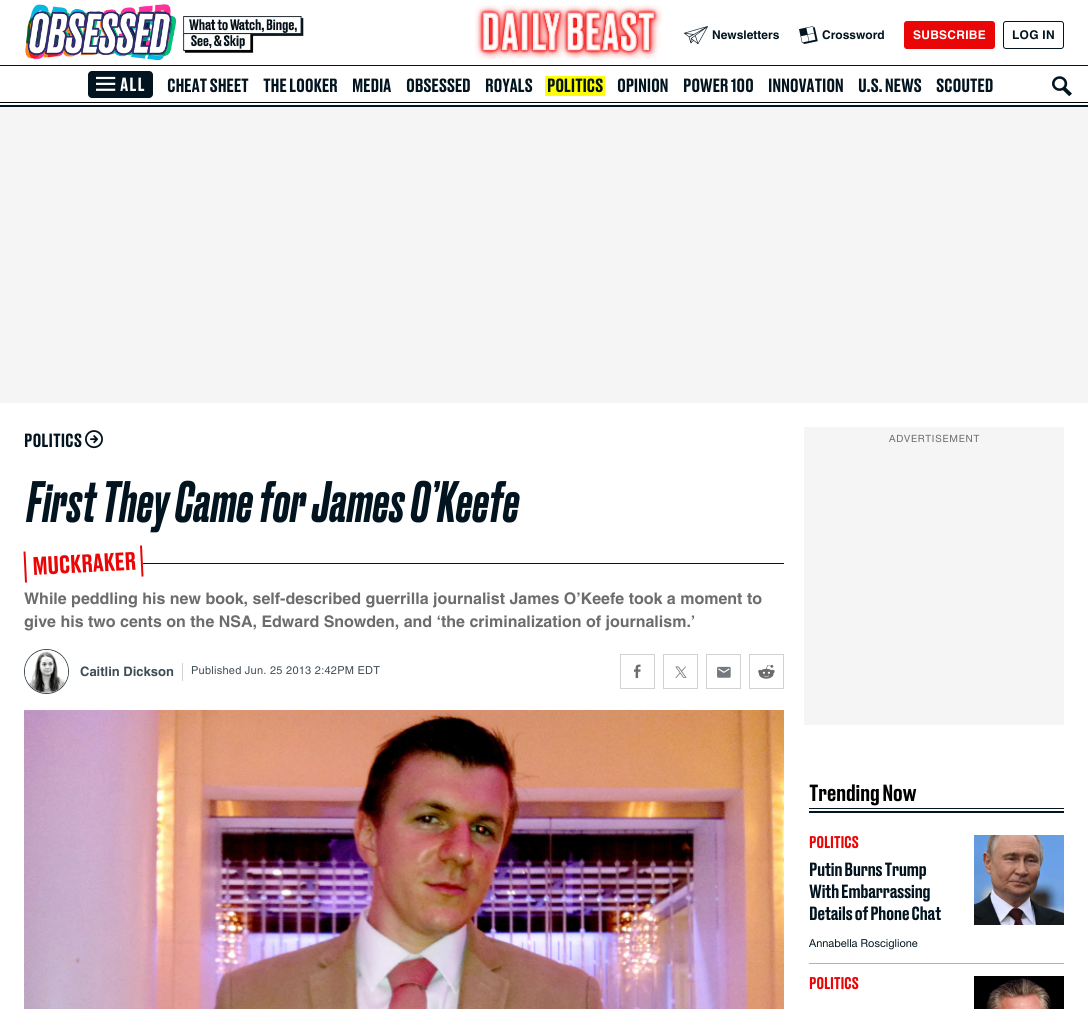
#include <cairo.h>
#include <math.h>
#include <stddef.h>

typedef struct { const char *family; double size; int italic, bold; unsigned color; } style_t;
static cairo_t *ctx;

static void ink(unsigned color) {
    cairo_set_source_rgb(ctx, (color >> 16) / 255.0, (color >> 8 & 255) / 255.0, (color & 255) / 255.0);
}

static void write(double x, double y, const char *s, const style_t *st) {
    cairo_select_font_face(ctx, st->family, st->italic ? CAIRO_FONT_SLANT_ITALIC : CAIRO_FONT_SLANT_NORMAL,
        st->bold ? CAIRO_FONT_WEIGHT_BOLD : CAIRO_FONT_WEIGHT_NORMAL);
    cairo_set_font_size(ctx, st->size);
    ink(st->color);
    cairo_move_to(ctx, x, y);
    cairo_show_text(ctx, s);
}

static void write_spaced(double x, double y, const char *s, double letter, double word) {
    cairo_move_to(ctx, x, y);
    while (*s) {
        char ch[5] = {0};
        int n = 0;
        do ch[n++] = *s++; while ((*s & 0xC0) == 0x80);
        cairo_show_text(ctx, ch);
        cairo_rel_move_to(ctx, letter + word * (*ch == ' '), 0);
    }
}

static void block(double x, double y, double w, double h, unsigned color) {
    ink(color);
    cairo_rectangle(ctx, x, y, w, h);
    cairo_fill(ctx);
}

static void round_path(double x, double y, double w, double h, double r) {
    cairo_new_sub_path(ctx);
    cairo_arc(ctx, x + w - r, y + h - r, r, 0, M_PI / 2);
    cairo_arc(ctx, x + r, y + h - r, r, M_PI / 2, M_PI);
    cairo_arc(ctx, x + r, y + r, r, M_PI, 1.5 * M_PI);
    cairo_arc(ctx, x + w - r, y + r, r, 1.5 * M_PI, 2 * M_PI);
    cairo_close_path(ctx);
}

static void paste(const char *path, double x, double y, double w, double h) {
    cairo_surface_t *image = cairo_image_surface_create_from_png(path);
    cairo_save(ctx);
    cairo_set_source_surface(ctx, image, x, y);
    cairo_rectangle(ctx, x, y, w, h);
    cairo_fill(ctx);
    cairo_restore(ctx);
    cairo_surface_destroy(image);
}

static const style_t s1 = {"Helvetica", 12, 0, 1, 0x02141f};
static const style_t s2 = {"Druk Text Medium", 18, 0, 0, 0x02141f};
static const style_t s3 = {"Helvetica", 16, 0, 1, 0x6c6c6c};
static const style_t s4 = {"Helvetica", 13, 0, 1, 0x3f4d55};
static const style_t s5 = {"Helvetica Neue", 11, 0, 0, 0x02141f};

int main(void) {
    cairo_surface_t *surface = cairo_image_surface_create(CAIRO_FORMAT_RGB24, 1088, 1009);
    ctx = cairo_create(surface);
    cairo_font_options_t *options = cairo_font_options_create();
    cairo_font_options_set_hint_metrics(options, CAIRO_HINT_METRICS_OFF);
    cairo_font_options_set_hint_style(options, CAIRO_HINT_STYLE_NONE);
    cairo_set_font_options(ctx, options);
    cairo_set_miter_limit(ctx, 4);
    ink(0xffffff);
    cairo_paint(ctx);
    block(0, 105, 1088, 2, 0x02141f);
    paste("pic1.png", 24, 4, 280, 57);
    paste("pic2.png", 475, 5, 188, 55);
    paste("pic3.png", 684, 26, 24, 19);
    write(712, 39, "Newsletters", &s1);
    paste("pic4.png", 799, 26, 19, 19);
    write(822, 39, "Crossword", &s1);
    ink(0xea0606);
    round_path(904.5, 21.5, 90, 27, 2.5);
    cairo_fill_preserve(ctx);
    cairo_set_line_width(ctx, 1);
    cairo_stroke(ctx);
    ink(0xffffff);
    write_spaced(913, 39, "SUBSCRIBE", 0.25, 0);
    round_path(1003.5, 21.5, 60, 27, 2.5);
    ink(0x02141f);
    cairo_stroke(ctx);
    write_spaced(1012, 39, "LOG IN", 0.25, 0);
    block(0, 65, 1088, 1, 0x02141f);
    round_path(88, 71, 65, 27, 4);
    cairo_fill(ctx);
    paste("pic5.png", 96, 76, 20, 15);
    cairo_select_font_face(ctx, "Druk Text Medium", CAIRO_FONT_SLANT_NORMAL, CAIRO_FONT_WEIGHT_NORMAL);
    cairo_set_font_size(ctx, 18);
    ink(0xffffff);
    write_spaced(120, 91, "ALL", 1, 0);
    ink(0x02141f);
    write_spaced(167, 92, "CHEAT SHEET", -0.25, 0);
    write_spaced(263, 92, "THE LOOKER", -0.25, 0);
    write_spaced(352, 92, "MEDIA", -0.25, 0);
    write_spaced(406, 92, "OBSESSED", -0.25, 0);
    write_spaced(485, 92, "ROYALS", -0.25, 0);
    block(545, 76, 60, 20, 0xffff00);
    ink(0x02141f);
    write_spaced(547, 92, "POLITICS", -0.25, 0);
    write_spaced(617, 92, "OPINION", -0.25, 0);
    write_spaced(683, 92, "POWER 100", -0.25, 0);
    write_spaced(768, 92, "INNOVATION", -0.25, 0);
    write_spaced(858, 92, "U.S. NEWS", -0.25, 0);
    write_spaced(936, 92, "SCOUTED", -0.25, 0);
    paste("pic6.png", 1052, 76, 20, 21);
    block(0, 102, 1088, 1, 0x000000);
    block(0, 107, 1088, 296, 0xf5f5f5);
    write(24, 447, "POLITICS", &s2);
    paste("pic7.png", 85, 430, 18, 19);
    cairo_select_font_face(ctx, "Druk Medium", CAIRO_FONT_SLANT_ITALIC, CAIRO_FONT_WEIGHT_NORMAL);
    cairo_set_font_size(ctx, 55);
    write_spaced(27, 522, "First They Came for James O’Keefe", 0.5, 0);
    block(143, 563, 641, 1, 0x02141f);
    ink(0xea0606);
    cairo_new_path(ctx);
    cairo_move_to(ctx, 140, 545.5);
    cairo_line_to(ctx, 142, 545.5);
    cairo_line_to(ctx, 143.5, 576.5);
    cairo_line_to(ctx, 141.5, 576.5);
    cairo_close_path(ctx);
    cairo_fill(ctx);
    cairo_new_path(ctx);
    cairo_move_to(ctx, 23.5, 551.5);
    cairo_line_to(ctx, 25.5, 551.5);
    cairo_line_to(ctx, 27, 582.5);
    cairo_line_to(ctx, 25, 582.5);
    cairo_close_path(ctx);
    cairo_fill(ctx);
    cairo_select_font_face(ctx, "Druk Text Medium", CAIRO_FONT_SLANT_NORMAL, CAIRO_FONT_WEIGHT_NORMAL);
    cairo_set_font_size(ctx, 24);
    cairo_save(ctx);
    cairo_translate(ctx, 33, 575);
    cairo_rotate(ctx, -3 * M_PI / 180);
    write_spaced(0, 0, "MUCKRAKER", -0.25, 0);
    cairo_restore(ctx);
    write(24, 604, "While peddling his new book, self-described guerrilla journalist James O’Keefe took a moment to", &s3);
    write(24, 627, "give his two cents on the NSA, Edward Snowden, and ‘the criminalization of journalism.’", &s3);
    cairo_new_path(ctx);
    cairo_arc(ctx, 46.5, 671.5, 22, 0, 2 * M_PI);
    ink(0x3f4d55);
    cairo_stroke(ctx);
    paste("pic8.png", 25, 650, 43, 43);
    write(80, 676, "Caitlin Dickson", &s4);
    block(182, 663, 1, 18, 0xd5d1d1);
    cairo_select_font_face(ctx, "Helvetica", CAIRO_FONT_SLANT_NORMAL, CAIRO_FONT_WEIGHT_NORMAL);
    cairo_set_font_size(ctx, 11);
    ink(0x3f4d55);
    write_spaced(191, 674, "Published Jun. 25 2013 2:42PM EDT", 0.25, 0);
    paste("pic9.png", 620, 654, 35, 35);
    paste("pic10.png", 663, 654, 35, 35);
    paste("pic11.png", 706, 654, 35, 35);
    paste("pic12.png", 749, 654, 35, 35);
    paste("pic13.png", 24, 710, 760, 299);
    block(804, 427, 260, 298, 0xf5f5f5);
    cairo_select_font_face(ctx, "Helvetica Neue", CAIRO_FONT_SLANT_NORMAL, CAIRO_FONT_WEIGHT_NORMAL);
    cairo_set_font_size(ctx, 10);
    ink(0x6c6c6c);
    write_spaced(889, 442, "ADVERTISEMENT", 0.75, 0);
    cairo_select_font_face(ctx, "Druk Text Medium", CAIRO_FONT_SLANT_NORMAL, CAIRO_FONT_WEIGHT_NORMAL);
    cairo_set_font_size(ctx, 22);
    ink(0x000000);
    write_spaced(809, 801, "Trending Now", -0.5, 0);
    block(809, 808, 255, 1, 0x02141f);
    block(809, 811, 255, 2, 0x02141f);
    block(809, 963, 255, 1, 0xb2b2b2);
    cairo_set_font_size(ctx, 16);
    ink(0xea0606);
    write_spaced(809, 848, "POLITICS", -0.25, 0);
    cairo_set_font_size(ctx, 18);
    ink(0x02141f);
    write_spaced(809, 876, "Putin Burns Trump", -0.5, 0);
    write_spaced(809, 898, "With Embarrassing", -0.5, 0);
    write_spaced(809, 920, "Details of Phone Chat", -0.5, 0);
    write(809, 947, "Annabella Rosciglione", &s5);
    paste("pic14.png", 974, 835, 90, 90);
    cairo_select_font_face(ctx, "Druk Text Medium", CAIRO_FONT_SLANT_NORMAL, CAIRO_FONT_WEIGHT_NORMAL);
    cairo_set_font_size(ctx, 16);
    ink(0xea0606);
    write_spaced(809, 989, "POLITICS", -0.25, 0);
    paste("pic15.png", 974, 976, 90, 33);
    cairo_surface_write_to_png(surface, "screenshot.png");
    cairo_font_options_destroy(options);
    cairo_destroy(ctx);
    cairo_surface_destroy(surface);
    return 0;
}
